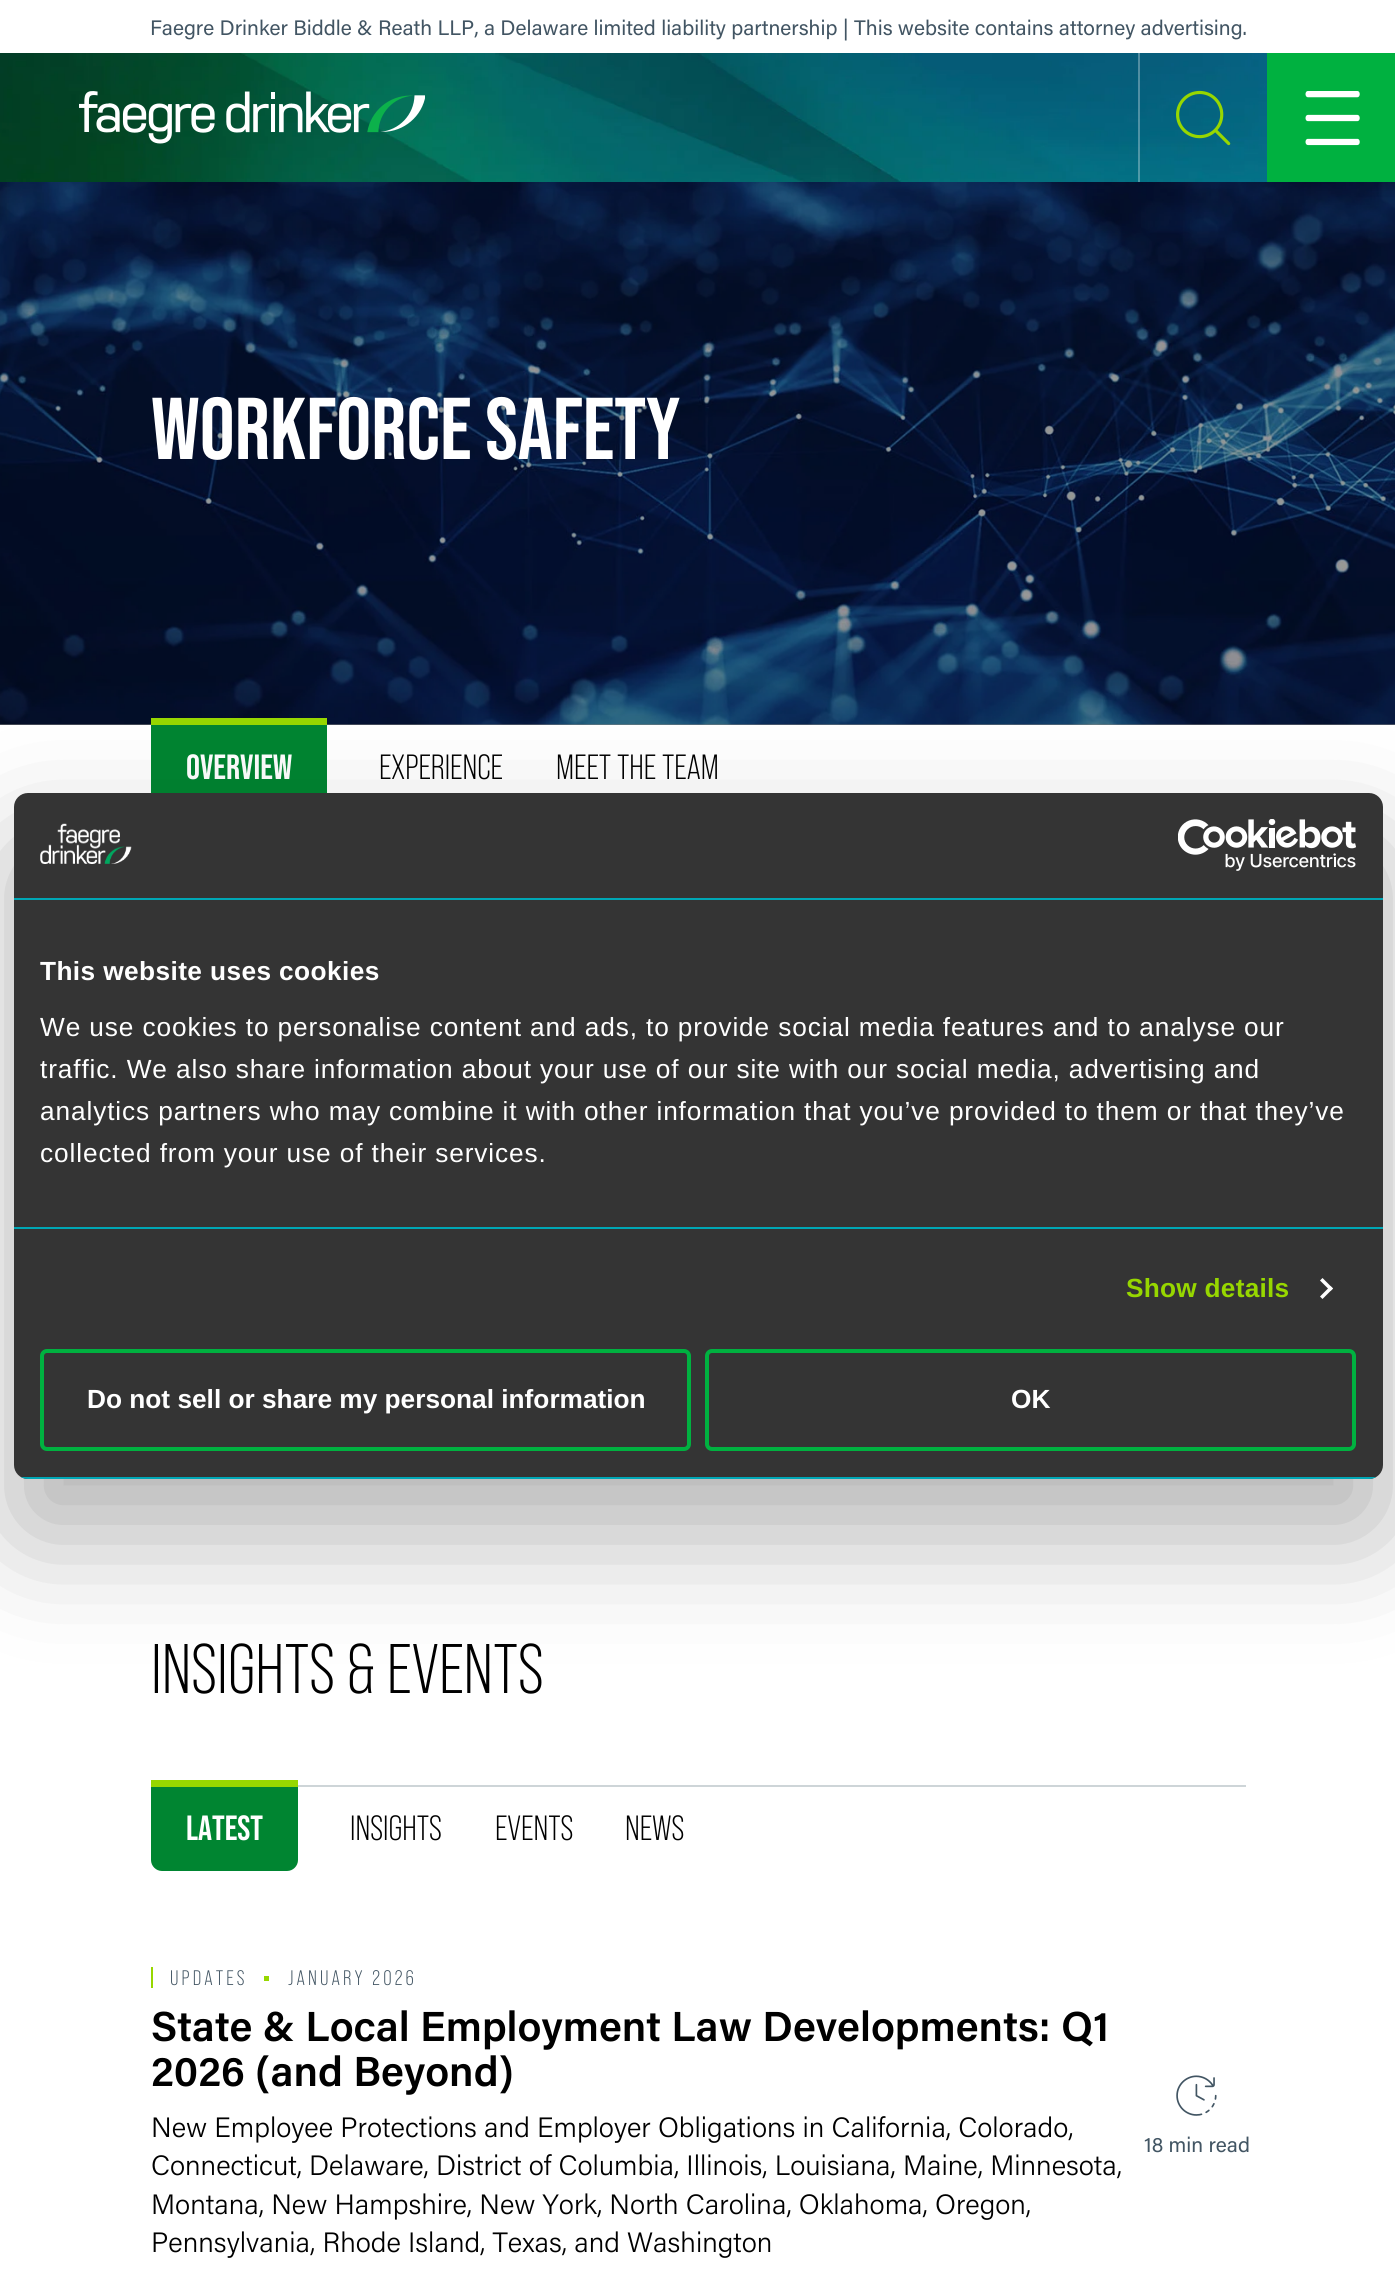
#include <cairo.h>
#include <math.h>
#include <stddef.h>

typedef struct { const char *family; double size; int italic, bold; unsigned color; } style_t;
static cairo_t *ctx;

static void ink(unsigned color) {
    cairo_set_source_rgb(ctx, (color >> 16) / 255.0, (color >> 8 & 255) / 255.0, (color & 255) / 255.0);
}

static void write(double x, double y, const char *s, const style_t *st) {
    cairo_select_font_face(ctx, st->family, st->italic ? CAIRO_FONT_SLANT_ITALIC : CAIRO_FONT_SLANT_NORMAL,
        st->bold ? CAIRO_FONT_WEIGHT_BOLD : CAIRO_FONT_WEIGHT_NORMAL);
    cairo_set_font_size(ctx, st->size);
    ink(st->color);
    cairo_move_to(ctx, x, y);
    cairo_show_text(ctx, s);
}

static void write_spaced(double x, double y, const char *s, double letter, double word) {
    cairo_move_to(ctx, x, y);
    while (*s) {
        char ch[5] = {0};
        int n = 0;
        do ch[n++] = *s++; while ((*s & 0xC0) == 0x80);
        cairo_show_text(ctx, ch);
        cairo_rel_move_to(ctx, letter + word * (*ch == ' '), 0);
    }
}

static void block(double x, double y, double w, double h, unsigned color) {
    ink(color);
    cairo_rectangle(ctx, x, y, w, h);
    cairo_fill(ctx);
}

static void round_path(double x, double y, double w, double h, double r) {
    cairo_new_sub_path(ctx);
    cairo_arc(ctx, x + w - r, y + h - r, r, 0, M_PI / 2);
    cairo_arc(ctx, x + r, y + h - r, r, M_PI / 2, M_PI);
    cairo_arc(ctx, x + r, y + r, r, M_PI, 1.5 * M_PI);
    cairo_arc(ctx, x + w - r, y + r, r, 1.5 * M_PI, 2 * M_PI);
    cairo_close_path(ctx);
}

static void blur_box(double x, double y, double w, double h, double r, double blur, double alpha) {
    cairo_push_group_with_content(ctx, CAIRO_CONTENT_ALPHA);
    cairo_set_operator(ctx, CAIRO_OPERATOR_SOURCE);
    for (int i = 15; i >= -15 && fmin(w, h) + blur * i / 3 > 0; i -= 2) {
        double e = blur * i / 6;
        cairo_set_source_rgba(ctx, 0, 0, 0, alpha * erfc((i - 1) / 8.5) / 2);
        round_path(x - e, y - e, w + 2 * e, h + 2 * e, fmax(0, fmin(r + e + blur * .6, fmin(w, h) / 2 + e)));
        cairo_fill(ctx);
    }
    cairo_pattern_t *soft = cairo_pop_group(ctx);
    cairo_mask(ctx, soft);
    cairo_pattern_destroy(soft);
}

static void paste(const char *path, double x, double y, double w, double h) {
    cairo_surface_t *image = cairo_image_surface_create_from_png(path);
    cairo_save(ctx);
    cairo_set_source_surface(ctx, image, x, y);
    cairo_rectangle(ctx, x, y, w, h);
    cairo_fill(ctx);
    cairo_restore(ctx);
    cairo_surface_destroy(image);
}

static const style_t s1 = {"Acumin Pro", 21, 0, 0, 0x425563};
static const style_t s2 = {"Bebas Neue", 87.5, 0, 1, 0xffffff};
static const style_t s3 = {"Bebas Neue", 35, 0, 1, 0xffffff};
static const style_t s4 = {"Bebas Neue", 35, 0, 0, 0x000000};
static const style_t s5 = {"Bebas Neue", 70, 0, 0, 0x000000};
static const style_t s6 = {"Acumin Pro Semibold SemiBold", 42, 0, 0, 0x000000};
static const style_t s7 = {"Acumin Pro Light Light", 28, 0, 0, 0x000000};
static const style_t s8 = {"Liberation Sans", 26.25, 0, 1, 0xffffff};

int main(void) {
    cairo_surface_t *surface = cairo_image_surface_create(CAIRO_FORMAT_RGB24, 1395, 2269);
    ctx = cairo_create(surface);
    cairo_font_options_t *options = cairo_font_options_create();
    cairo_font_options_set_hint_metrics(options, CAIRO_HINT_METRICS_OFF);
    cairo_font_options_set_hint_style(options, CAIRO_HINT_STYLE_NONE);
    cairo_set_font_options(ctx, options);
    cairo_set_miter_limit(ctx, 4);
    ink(0xffffff);
    cairo_paint(ctx);
    write(150, 35, "Faegre Drinker Biddle & Reath LLP, a Delaware limited liability partnership | This website contains attorney advertising.", &s1);
    paste("pic1.png", 0, 53, 1267, 129);
    paste("pic2.png", 79, 91, 346, 53);
    cairo_set_source_rgba(ctx, 1, 1, 1, 0.3);
    cairo_rectangle(ctx, 1138, 53, 2, 129);
    cairo_fill(ctx);
    paste("pic3.png", 1176, 90, 55, 56);
    block(1267, 53, 128, 129, 0x00b140);
    paste("pic4.png", 1305, 91, 55, 55);
    block(0, 724, 1395, 1, 0x7f7f7f);
    paste("pic5.png", 0, 182, 1395, 543);
    write(151, 459, "WORKFORCE SAFETY", &s2);
    block(151, 725, 176, 68, 0x008531);
    block(151, 718, 176, 7, 0x97d700);
    write(186, 779, "OVERVIEW", &s3);
    write(379, 779, "EXPERIENCE", &s4);
    write(556, 779, "MEET THE TEAM", &s4);
    write(151, 1693, "INSIGHTS & EVENTS", &s5);
    block(298, 1785, 948, 2, 0xced5d8);
    ink(0x008531);
    cairo_new_path(ctx);
    cairo_move_to(ctx, 151, 1787);
    cairo_line_to(ctx, 298, 1787);
    cairo_line_to(ctx, 298, 1860);
    cairo_curve_to(ctx, 298, 1866, 293, 1871, 287, 1871);
    cairo_line_to(ctx, 162, 1871);
    cairo_curve_to(ctx, 156, 1871, 151, 1866, 151, 1860);
    cairo_close_path(ctx);
    cairo_fill(ctx);
    block(151, 1780, 147, 7, 0x97d700);
    write(186, 1840, "LATEST", &s3);
    write(350, 1840, "INSIGHTS", &s4);
    write(495, 1840, "EVENTS", &s4);
    write(625, 1840, "NEWS", &s4);
    block(151, 1967, 2, 21, 0x97d700);
    cairo_set_font_size(ctx, 21);
    ink(0x425563);
    write_spaced(170, 1985, "UPDATES", 3.1, 0);
    block(264, 1976, 5, 5, 0x97d700);
    ink(0x425563);
    write_spaced(288, 1985, "JANUARY 2026", 3.1, 0);
    write(151, 2041, "State & Local Employment Law Developments: Q1", &s6);
    write(151, 2086, "2026 (and Beyond)", &s6);
    write(151, 2137, "New Employee Protections and Employer Obligations in California, Colorado,", &s7);
    write(151, 2175, "Connecticut, Delaware, District of Columbia, Illinois, Louisiana, Maine, Minnesota,", &s7);
    write(151, 2214, "Montana, New Hampshire, New York, North Carolina, Oklahoma, Oregon,", &s7);
    write(151, 2252, "Pennsylvania, Rhode Island, Texas, and Washington", &s7);
    paste("pic6.png", 1176, 2075, 41, 41);
    write(1144, 2152, "18 min read", &s1);
    ink(0x000000);
    blur_box(14, 849, 1369, 686, 14, 59.5, 0.3);
    ink(0x343434);
    round_path(14, 793, 1369, 686, 14);
    cairo_fill(ctx);
    block(14, 898, 1369, 2, 0x00a7b5);
    paste("pic7.png", 40, 823, 92, 41);
    paste("pic8.png", 1178, 819, 178, 52);
    block(14, 1227, 1369, 2, 0x00a7b5);
    cairo_select_font_face(ctx, "Liberation Sans", CAIRO_FONT_SLANT_NORMAL, CAIRO_FONT_WEIGHT_BOLD);
    cairo_set_font_size(ctx, 26.25);
    ink(0xffffff);
    write_spaced(40, 980, "This website uses cookies", 0.4, 0);
    cairo_select_font_face(ctx, "Liberation Sans", CAIRO_FONT_SLANT_NORMAL, CAIRO_FONT_WEIGHT_NORMAL);
    write_spaced(40, 1036, "We use cookies to personalise content and ads, to provide social media features and to analyse our", 0.88, 0);
    write_spaced(40, 1078, "traffic. We also share information about your use of our site with our social media, advertising and", 0.88, 0);
    write_spaced(40, 1120, "analytics partners who may combine it with other information that you’ve provided to them or that they’ve", 0.88, 0);
    write_spaced(40, 1162, "collected from your use of their services.", 0.88, 0);
    cairo_select_font_face(ctx, "Liberation Sans", CAIRO_FONT_SLANT_NORMAL, CAIRO_FONT_WEIGHT_BOLD);
    ink(0x97d700);
    write_spaced(1126, 1297, "Show details", 0.25, 0);
    ink(0xffffff);
    cairo_new_path(ctx);
    cairo_move_to(ctx, 1322.5, 1278);
    cairo_line_to(ctx, 1333, 1288.5);
    cairo_line_to(ctx, 1330.5, 1291);
    cairo_line_to(ctx, 1320, 1280.5);
    cairo_close_path(ctx);
    cairo_fill(ctx);
    cairo_new_path(ctx);
    cairo_move_to(ctx, 1330.5, 1286);
    cairo_line_to(ctx, 1333, 1288.5);
    cairo_line_to(ctx, 1322.5, 1299);
    cairo_line_to(ctx, 1320, 1296.5);
    cairo_close_path(ctx);
    cairo_fill(ctx);
    cairo_save(ctx);
    round_path(14, 793, 1369, 686, 14);
    cairo_clip(ctx);
    block(14, 1477, 1369, 2, 0x00a7b5);
    cairo_restore(ctx);
    round_path(42, 1351, 647, 98, 5);
    ink(0x00b140);
    cairo_set_line_width(ctx, 4);
    cairo_stroke(ctx);
    write(87, 1408, "Do not sell or share my personal information", &s8);
    round_path(707, 1351, 647, 98, 5);
    ink(0x00b140);
    cairo_stroke(ctx);
    write(1011, 1408, "OK", &s8);
    cairo_surface_write_to_png(surface, "screenshot.png");
    cairo_font_options_destroy(options);
    cairo_destroy(ctx);
    cairo_surface_destroy(surface);
    return 0;
}
